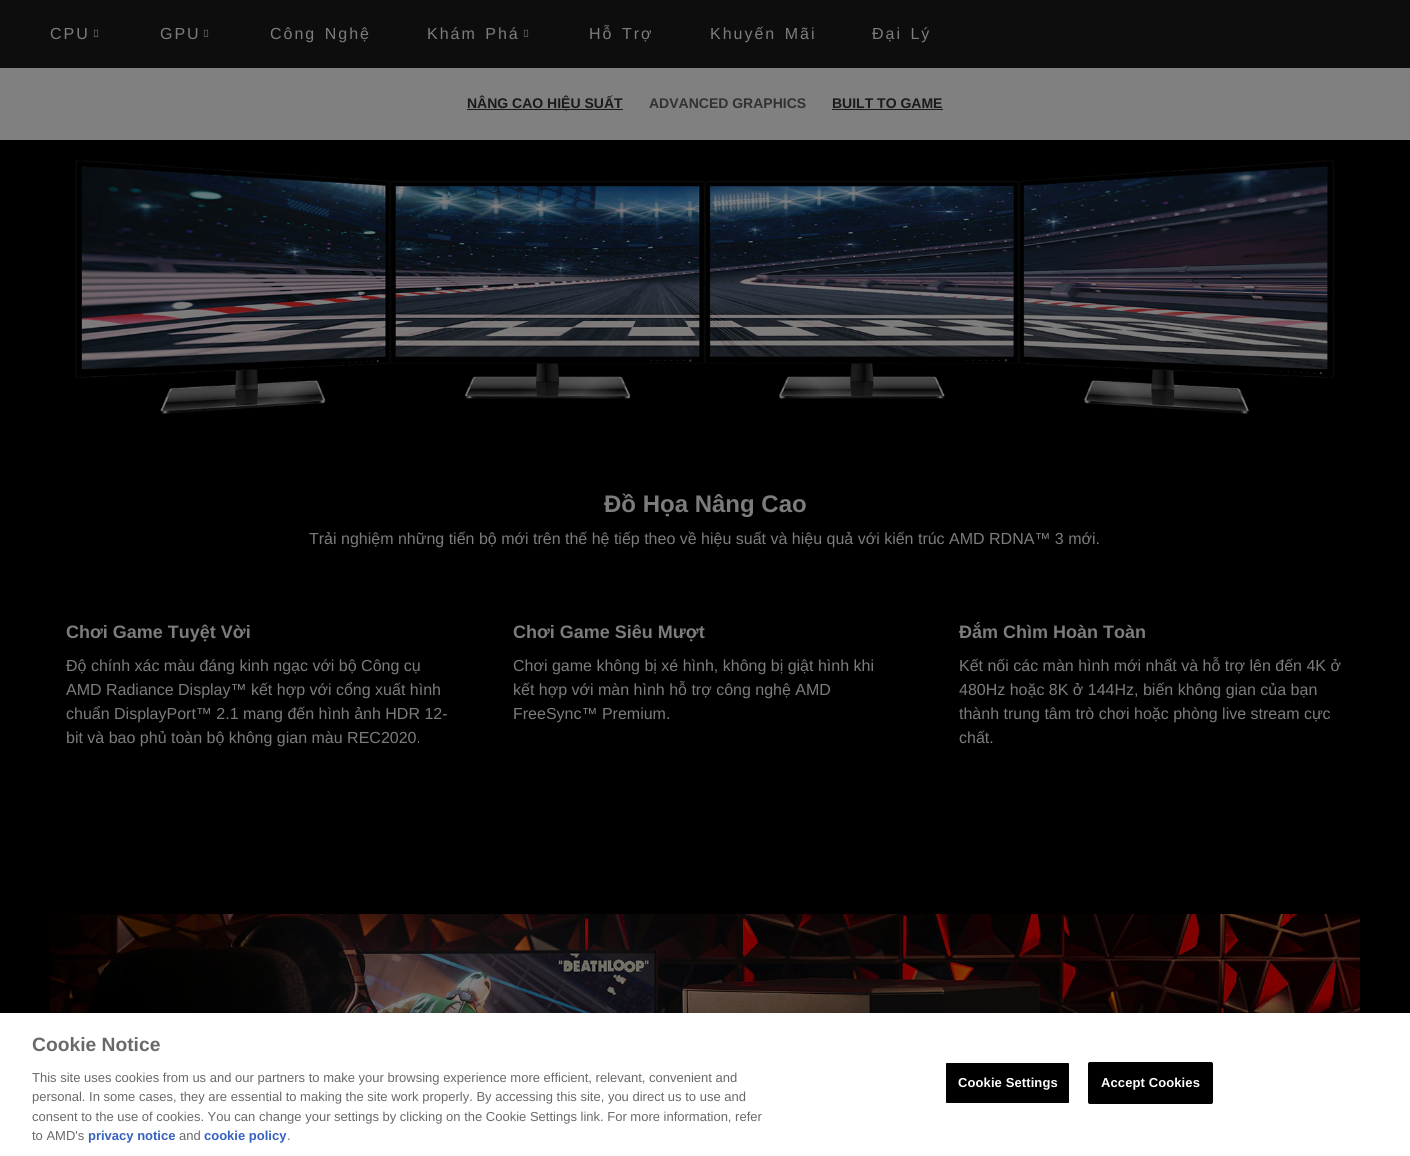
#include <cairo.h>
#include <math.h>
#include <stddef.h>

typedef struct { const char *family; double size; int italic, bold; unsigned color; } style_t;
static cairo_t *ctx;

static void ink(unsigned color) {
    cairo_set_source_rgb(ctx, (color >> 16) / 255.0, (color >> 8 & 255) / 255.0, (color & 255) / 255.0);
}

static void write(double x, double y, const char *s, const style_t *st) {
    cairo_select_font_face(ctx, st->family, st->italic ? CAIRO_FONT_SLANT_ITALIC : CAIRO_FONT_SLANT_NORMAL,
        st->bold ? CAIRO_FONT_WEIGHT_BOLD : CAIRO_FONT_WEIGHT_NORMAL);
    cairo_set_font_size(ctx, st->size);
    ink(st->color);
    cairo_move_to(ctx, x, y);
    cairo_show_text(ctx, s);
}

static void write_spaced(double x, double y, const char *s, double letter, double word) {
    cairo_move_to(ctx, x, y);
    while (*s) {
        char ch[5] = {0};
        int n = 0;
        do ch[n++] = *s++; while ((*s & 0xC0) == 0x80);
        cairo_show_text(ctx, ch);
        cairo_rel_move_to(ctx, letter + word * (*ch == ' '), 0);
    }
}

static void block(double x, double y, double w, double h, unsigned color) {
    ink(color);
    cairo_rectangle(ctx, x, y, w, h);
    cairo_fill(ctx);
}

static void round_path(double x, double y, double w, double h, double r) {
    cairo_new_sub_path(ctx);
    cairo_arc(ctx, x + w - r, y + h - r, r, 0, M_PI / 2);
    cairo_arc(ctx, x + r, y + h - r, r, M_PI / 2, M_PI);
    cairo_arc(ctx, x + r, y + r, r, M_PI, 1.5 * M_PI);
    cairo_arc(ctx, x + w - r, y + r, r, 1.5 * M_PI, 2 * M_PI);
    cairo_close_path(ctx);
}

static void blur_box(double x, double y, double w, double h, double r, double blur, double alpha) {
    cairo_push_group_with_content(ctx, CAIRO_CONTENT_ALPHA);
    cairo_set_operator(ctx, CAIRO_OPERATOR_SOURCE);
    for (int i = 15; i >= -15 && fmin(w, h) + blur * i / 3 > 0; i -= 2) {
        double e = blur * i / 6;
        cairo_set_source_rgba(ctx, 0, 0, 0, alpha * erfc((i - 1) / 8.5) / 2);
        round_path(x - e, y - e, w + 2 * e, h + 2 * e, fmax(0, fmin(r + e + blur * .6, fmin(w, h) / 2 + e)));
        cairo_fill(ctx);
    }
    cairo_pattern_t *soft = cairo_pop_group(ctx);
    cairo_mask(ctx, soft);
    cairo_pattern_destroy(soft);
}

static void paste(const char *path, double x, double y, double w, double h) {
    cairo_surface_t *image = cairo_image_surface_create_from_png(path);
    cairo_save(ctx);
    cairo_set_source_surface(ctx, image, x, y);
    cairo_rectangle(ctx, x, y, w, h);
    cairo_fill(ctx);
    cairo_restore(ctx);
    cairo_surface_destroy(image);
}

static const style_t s1 = {"Liberation Sans", 14, 0, 1, 0x1a1a1a};
static const style_t s2 = {"Liberation Sans", 14, 0, 1, 0x323233};
static const style_t s3 = {"Liberation Sans", 24, 0, 1, 0x7c7c7d};
static const style_t s4 = {"Liberation Sans", 16, 0, 0, 0x7c7c7d};
static const style_t s5 = {"Liberation Sans", 18, 0, 1, 0x7c7c7d};
static const style_t s6 = {"Liberation Sans", 19.25, 0, 1, 0x696969};
static const style_t s7 = {"Liberation Sans", 13, 0, 0, 0x696969};
static const style_t s8 = {"Liberation Sans", 13, 0, 1, 0x3860be};

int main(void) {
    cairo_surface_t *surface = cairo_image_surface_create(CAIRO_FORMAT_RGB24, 1410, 1156);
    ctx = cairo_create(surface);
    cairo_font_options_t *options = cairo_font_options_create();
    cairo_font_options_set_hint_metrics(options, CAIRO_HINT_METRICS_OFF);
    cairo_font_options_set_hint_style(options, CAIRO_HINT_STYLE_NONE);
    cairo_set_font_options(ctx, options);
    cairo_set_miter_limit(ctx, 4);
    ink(0x000000);
    cairo_paint(ctx);
    block(0, 0, 1410, 68, 0x0d0d0e);
    cairo_select_font_face(ctx, "Liberation Sans", CAIRO_FONT_SLANT_NORMAL, CAIRO_FONT_WEIGHT_NORMAL);
    cairo_set_font_size(ctx, 16);
    ink(0x7c7c7d);
    write_spaced(50, 39, "CPU", 2, 0);
    paste("pic1.png", 93, 29, 6, 8);
    write_spaced(160, 39, "GPU", 2, 0);
    paste("pic1.png", 203, 29, 6, 8);
    write_spaced(270, 39, "Công Nghệ", 2, 2);
    write_spaced(427, 39, "Khám Phá", 2, 2);
    paste("pic1.png", 523, 29, 6, 8);
    write_spaced(589, 39, "Hỗ Trợ", 2, 2);
    write_spaced(710, 39, "Khuyến Mãi", 2, 2);
    write_spaced(872, 39, "Đại Lý", 2, 2);
    block(0, 68, 1410, 72, 0x808080);
    block(467, 109, 156, 1, 0x1a1a1a);
    write(467, 108, "NÂNG CAO HIỆU SUẤT", &s1);
    write(649, 108, "ADVANCED GRAPHICS", &s2);
    write(832, 108, "BUILT TO GAME", &s1);
    block(832, 109, 111, 1, 0x1a1a1a);
    paste("pic2.png", 75, 160, 1259, 254);
    write(604, 512, "Đồ Họa Nâng Cao", &s3);
    write(309, 544, "Trải nghiệm những tiến bộ mới trên thế hệ tiếp theo về hiệu suất và hiệu quả với kiến trúc AMD RDNA™ 3 mới.", &s4);
    write(66, 638, "Chơi Game Tuyệt Vời", &s5);
    write(66, 671, "Độ chính xác màu đáng kinh ngạc với bộ Công cụ", &s4);
    write(66, 695, "AMD Radiance Display™ kết hợp với cổng xuất hình", &s4);
    write(66, 719, "chuẩn DisplayPort™ 2.1 mang đến hình ảnh HDR 12-", &s4);
    write(66, 743, "bit và bao phủ toàn bộ không gian màu REC2020.", &s4);
    write(513, 638, "Chơi Game Siêu Mượt", &s5);
    write(513, 671, "Chơi game không bị xé hình, không bị giật hình khi", &s4);
    write(513, 695, "kết hợp với màn hình hỗ trợ công nghệ AMD", &s4);
    write(513, 719, "FreeSync™ Premium.", &s4);
    write(959, 638, "Đắm Chìm Hoàn Toàn", &s5);
    write(959, 671, "Kết nối các màn hình mới nhất và hỗ trợ lên đến 4K ở", &s4);
    write(959, 695, "480Hz hoặc 8K ở 144Hz, biến không gian của bạn", &s4);
    write(959, 719, "thành trung tâm trò chơi hoặc phòng live stream cực", &s4);
    write(959, 743, "chất.", &s4);
    paste("pic3.png", 50, 914, 1310, 99);
    ink(0x000000);
    blur_box(0, 1013, 1410, 143, 0, 9, 0.2);
    block(0, 1013, 1410, 143, 0xffffff);
    write(32, 1051, "Cookie Notice", &s6);
    write(32, 1082, "This site uses cookies from us and our partners to make your browsing experience more efficient, relevant, convenient and", &s7);
    write(32, 1101, "personal. In some cases, they are essential to making the site work properly. By accessing this site, you direct us to use and", &s7);
    write(32, 1121, "consent to the use of cookies. You can change your settings by clicking on the Cookie Settings link. For more information, refer", &s7);
    write(32, 1140, "to AMD's", &s7);
    write(88, 1140, "privacy notice", &s8);
    write(179, 1140, "and", &s7);
    write(204, 1140, "cookie policy", &s8);
    write(287, 1140, ".", &s7);
    ink(0x000000);
    round_path(945.5, 1062.5, 124, 41, 1.5);
    cairo_fill_preserve(ctx);
    ink(0xffffff);
    cairo_set_line_width(ctx, 1);
    cairo_stroke(ctx);
    cairo_select_font_face(ctx, "Liberation Sans", CAIRO_FONT_SLANT_NORMAL, CAIRO_FONT_WEIGHT_BOLD);
    write_spaced(958, 1087, "Cookie Settings", 0.1, 0);
    ink(0x000000);
    round_path(1088.5, 1062.5, 124, 41, 1.5);
    cairo_fill_preserve(ctx);
    cairo_stroke(ctx);
    ink(0xffffff);
    write_spaced(1101, 1087, "Accept Cookies", 0.1, 0);
    cairo_surface_write_to_png(surface, "screenshot.png");
    cairo_font_options_destroy(options);
    cairo_destroy(ctx);
    cairo_surface_destroy(surface);
    return 0;
}
